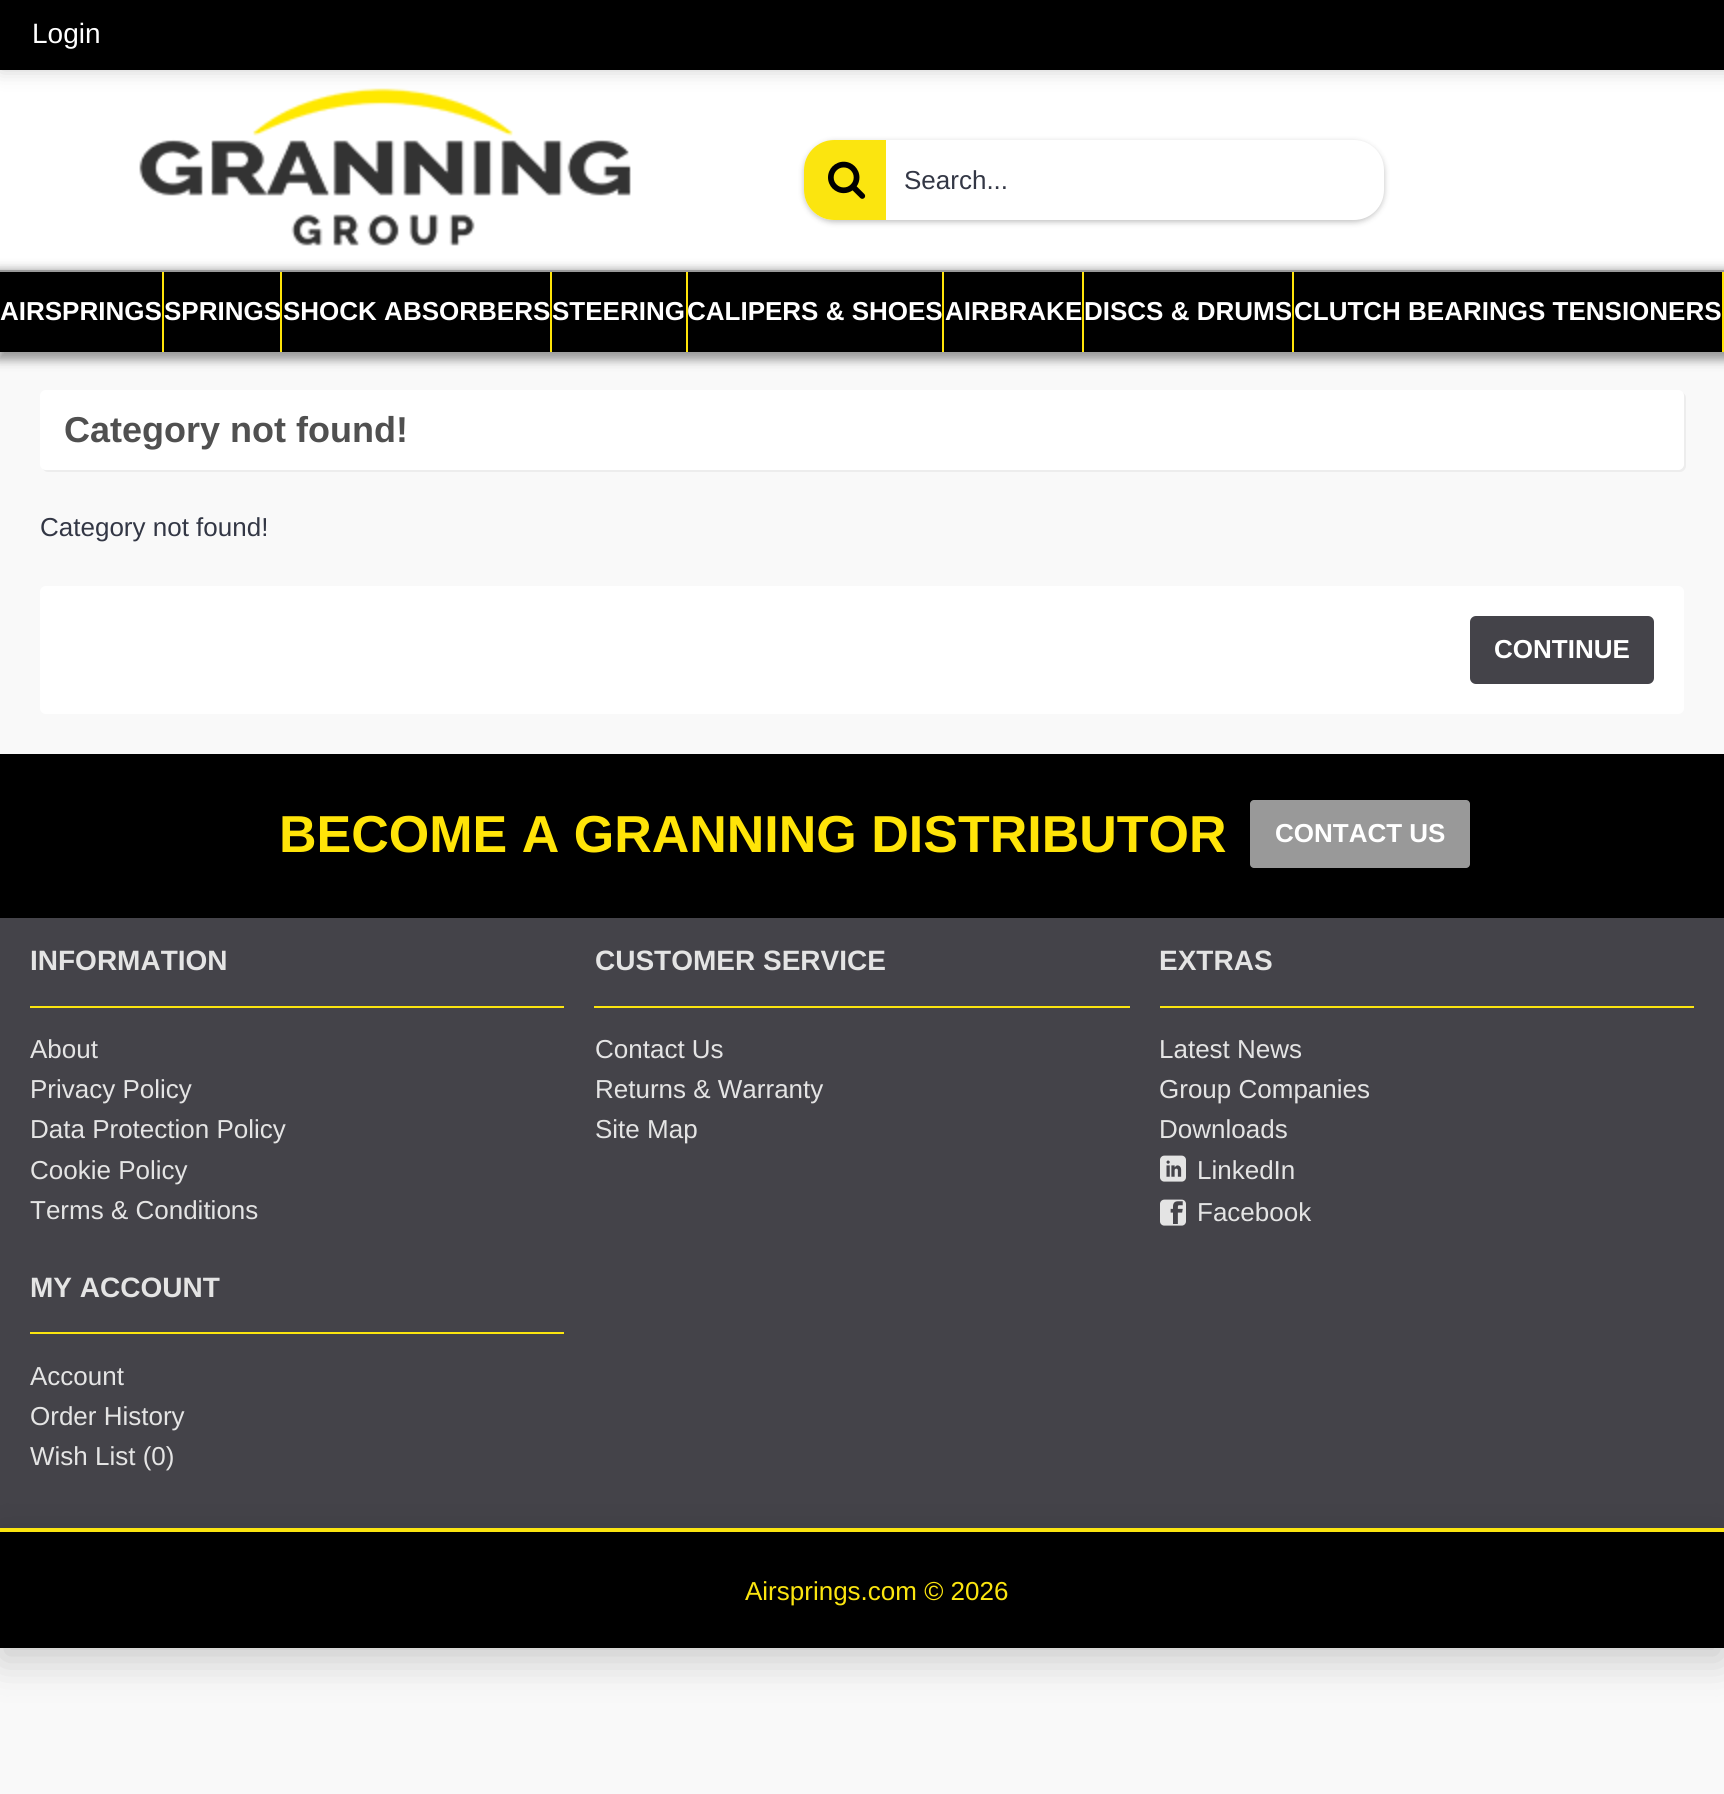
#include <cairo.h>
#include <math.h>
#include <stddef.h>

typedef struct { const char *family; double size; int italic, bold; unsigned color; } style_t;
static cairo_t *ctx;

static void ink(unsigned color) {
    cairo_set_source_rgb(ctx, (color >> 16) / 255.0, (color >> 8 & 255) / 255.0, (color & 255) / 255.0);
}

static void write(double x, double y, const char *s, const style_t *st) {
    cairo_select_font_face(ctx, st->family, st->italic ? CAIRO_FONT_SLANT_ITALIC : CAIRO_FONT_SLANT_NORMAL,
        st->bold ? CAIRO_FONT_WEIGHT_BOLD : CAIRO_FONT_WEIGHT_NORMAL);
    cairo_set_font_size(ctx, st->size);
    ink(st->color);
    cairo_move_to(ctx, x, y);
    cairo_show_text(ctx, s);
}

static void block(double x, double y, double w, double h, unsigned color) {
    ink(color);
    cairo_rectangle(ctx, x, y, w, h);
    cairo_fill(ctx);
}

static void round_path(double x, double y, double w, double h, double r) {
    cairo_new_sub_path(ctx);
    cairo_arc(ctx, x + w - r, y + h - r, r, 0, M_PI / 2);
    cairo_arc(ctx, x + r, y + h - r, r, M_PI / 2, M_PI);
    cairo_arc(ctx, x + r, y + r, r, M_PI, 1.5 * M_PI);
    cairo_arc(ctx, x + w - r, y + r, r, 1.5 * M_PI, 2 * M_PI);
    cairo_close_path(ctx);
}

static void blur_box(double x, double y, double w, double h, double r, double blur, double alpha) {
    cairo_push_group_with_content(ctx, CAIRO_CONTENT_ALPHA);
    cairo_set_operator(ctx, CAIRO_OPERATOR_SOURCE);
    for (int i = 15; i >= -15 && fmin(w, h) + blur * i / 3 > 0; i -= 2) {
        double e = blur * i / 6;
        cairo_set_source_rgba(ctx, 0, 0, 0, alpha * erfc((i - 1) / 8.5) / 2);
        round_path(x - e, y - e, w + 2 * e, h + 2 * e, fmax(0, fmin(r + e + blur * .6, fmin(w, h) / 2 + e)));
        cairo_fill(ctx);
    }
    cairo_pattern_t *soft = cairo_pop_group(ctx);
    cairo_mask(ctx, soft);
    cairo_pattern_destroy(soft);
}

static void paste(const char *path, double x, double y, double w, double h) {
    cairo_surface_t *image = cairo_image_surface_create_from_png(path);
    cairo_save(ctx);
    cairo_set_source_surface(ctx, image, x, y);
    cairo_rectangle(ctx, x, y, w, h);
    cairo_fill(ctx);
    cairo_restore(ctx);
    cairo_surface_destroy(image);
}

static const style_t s1 = {"Liberation Sans", 28, 0, 0, 0xffffff};
static const style_t s2 = {"Liberation Sans", 26, 0, 0, 0x333745};
static const style_t s3 = {"Liberation Sans", 26, 0, 1, 0xffffff};
static const style_t s4 = {"Liberation Sans", 36, 0, 1, 0x505050};
static const style_t s5 = {"Liberation Sans", 52, 0, 1, 0xffe408};
static const style_t s6 = {"Liberation Sans", 28, 0, 1, 0xe4e4e4};
static const style_t s7 = {"Liberation Sans", 26, 0, 0, 0xe4e4e4};
static const style_t s8 = {"Liberation Sans", 26, 0, 0, 0xfbe50f};

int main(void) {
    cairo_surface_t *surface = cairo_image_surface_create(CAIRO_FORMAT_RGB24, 1724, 1794);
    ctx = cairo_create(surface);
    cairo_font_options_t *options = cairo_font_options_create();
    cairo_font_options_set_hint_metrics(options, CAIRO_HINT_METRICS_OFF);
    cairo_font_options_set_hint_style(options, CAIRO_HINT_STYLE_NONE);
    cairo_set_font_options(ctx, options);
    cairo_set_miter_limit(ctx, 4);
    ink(0xf9f9f9);
    cairo_paint(ctx);
    block(0, 70, 1724, 200, 0xffffff);
    ink(0x000000);
    blur_box(0, 0, 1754, 70, 0, 10, 0.2);
    block(0, 0, 1724, 70, 0x000000);
    write(32, 43, "Login", &s1);
    paste("pic1.png", 139, 88, 492, 158);
    ink(0x000000);
    blur_box(804, 142, 580, 80, 30, 3, 0.25);
    ink(0xffffff);
    round_path(804, 140, 580, 80, 30);
    cairo_fill(ctx);
    ink(0xfbe50f);
    cairo_new_path(ctx);
    cairo_move_to(ctx, 834, 140);
    cairo_line_to(ctx, 886, 140);
    cairo_line_to(ctx, 886, 220);
    cairo_line_to(ctx, 834, 220);
    cairo_curve_to(ctx, 817.5, 220, 804, 206.5, 804, 190);
    cairo_line_to(ctx, 804, 170);
    cairo_curve_to(ctx, 804, 153.5, 817.5, 140, 834, 140);
    cairo_close_path(ctx);
    cairo_fill(ctx);
    paste("pic2.png", 828, 161, 38, 38);
    write(904, 189, "Search...", &s2);
    ink(0x999999);
    blur_box(-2, 270, 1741, 90, 0, 5, 1);
    block(0, 272, 1722, 80, 0x000000);
    block(0, 270, 1724, 2, 0x999999);
    write(0, 320, "AIRSPRINGS", &s3);
    block(162, 272, 2, 80, 0xffe408);
    write(164, 320, "SPRINGS", &s3);
    block(280, 272, 2, 80, 0xffe408);
    write(283, 320, "SHOCK ABSORBERS", &s3);
    block(550, 272, 2, 80, 0xffe408);
    write(552, 320, "STEERING", &s3);
    block(686, 272, 2, 80, 0xffe408);
    write(687, 320, "CALIPERS & SHOES", &s3);
    block(942, 272, 2, 80, 0xffe408);
    write(945, 320, "AIRBRAKE", &s3);
    block(1082, 272, 2, 80, 0xffe408);
    write(1084, 320, "DISCS & DRUMS", &s3);
    block(1292, 272, 2, 80, 0xffe408);
    write(1294, 320, "CLUTCH BEARINGS TENSIONERS", &s3);
    block(1722, 272, 2, 80, 0xffe408);
    ink(0xededed);
    cairo_new_path(ctx);
    cairo_move_to(ctx, 43, 469);
    cairo_curve_to(ctx, 44, 471, 46, 472, 48, 472);
    cairo_line_to(ctx, 1680, 472);
    cairo_curve_to(ctx, 1683, 472, 1686, 469, 1686, 466);
    cairo_line_to(ctx, 1686, 398);
    cairo_curve_to(ctx, 1686, 396, 1685, 394, 1683, 393);
    cairo_line_to(ctx, 1684, 396);
    cairo_line_to(ctx, 1684, 464);
    cairo_curve_to(ctx, 1684, 467, 1681, 470, 1678, 470);
    cairo_line_to(ctx, 46, 470);
    cairo_close_path(ctx);
    cairo_fill(ctx);
    ink(0xffffff);
    round_path(40, 390, 1644, 80, 6);
    cairo_fill(ctx);
    write(64, 442, "Category not found!", &s4);
    write(40, 536, "Category not found!", &s2);
    ink(0xffffff);
    round_path(40, 586, 1644, 128, 6);
    cairo_fill(ctx);
    ink(0x444349);
    round_path(1470, 616, 184, 68, 6);
    cairo_fill(ctx);
    write(1494, 658, "CONTINUE", &s3);
    block(0, 754, 1724, 164, 0x000000);
    write(279, 852, "BECOME A GRANNING DISTRIBUTOR", &s5);
    ink(0x999999);
    round_path(1250, 800, 220, 68, 4);
    cairo_fill(ctx);
    write(1275, 842, "CONTACT US", &s3);
    block(0, 918, 1724, 610, 0x444349);
    block(30, 1006, 534, 2, 0xfbe50f);
    write(30, 970, "INFORMATION", &s6);
    write(30, 1058, "About", &s7);
    write(30, 1098, "Privacy Policy", &s7);
    write(30, 1138, "Data Protection Policy", &s7);
    write(30, 1179, "Cookie Policy", &s7);
    write(30, 1219, "Terms & Conditions", &s7);
    block(594, 1006, 536, 2, 0xfbe50f);
    write(595, 970, "CUSTOMER SERVICE", &s6);
    write(595, 1058, "Contact Us", &s7);
    write(595, 1098, "Returns & Warranty", &s7);
    write(595, 1138, "Site Map", &s7);
    block(1160, 1006, 534, 2, 0xfbe50f);
    write(1159, 970, "EXTRAS", &s6);
    write(1159, 1058, "Latest News", &s7);
    write(1159, 1098, "Group Companies", &s7);
    write(1159, 1138, "Downloads", &s7);
    paste("pic3.png", 1160, 1155, 26, 27);
    write(1197, 1179, "LinkedIn", &s7);
    paste("pic4.png", 1160, 1199, 26, 27);
    write(1197, 1221, "Facebook", &s7);
    block(30, 1332, 534, 2, 0xfbe50f);
    write(30, 1297, "MY ACCOUNT", &s6);
    write(30, 1385, "Account", &s7);
    write(30, 1425, "Order History", &s7);
    write(30, 1465, "Wish List (0)", &s7);
    ink(0x000000);
    blur_box(0, 1540, 1724, 120, 0, 20, 0.2);
    block(0, 1532, 1724, 116, 0x000000);
    block(0, 1528, 1724, 4, 0xfbe50f);
    write(745, 1600, "Airsprings.com © 2026", &s8);
    cairo_surface_write_to_png(surface, "screenshot.png");
    cairo_font_options_destroy(options);
    cairo_destroy(ctx);
    cairo_surface_destroy(surface);
    return 0;
}
